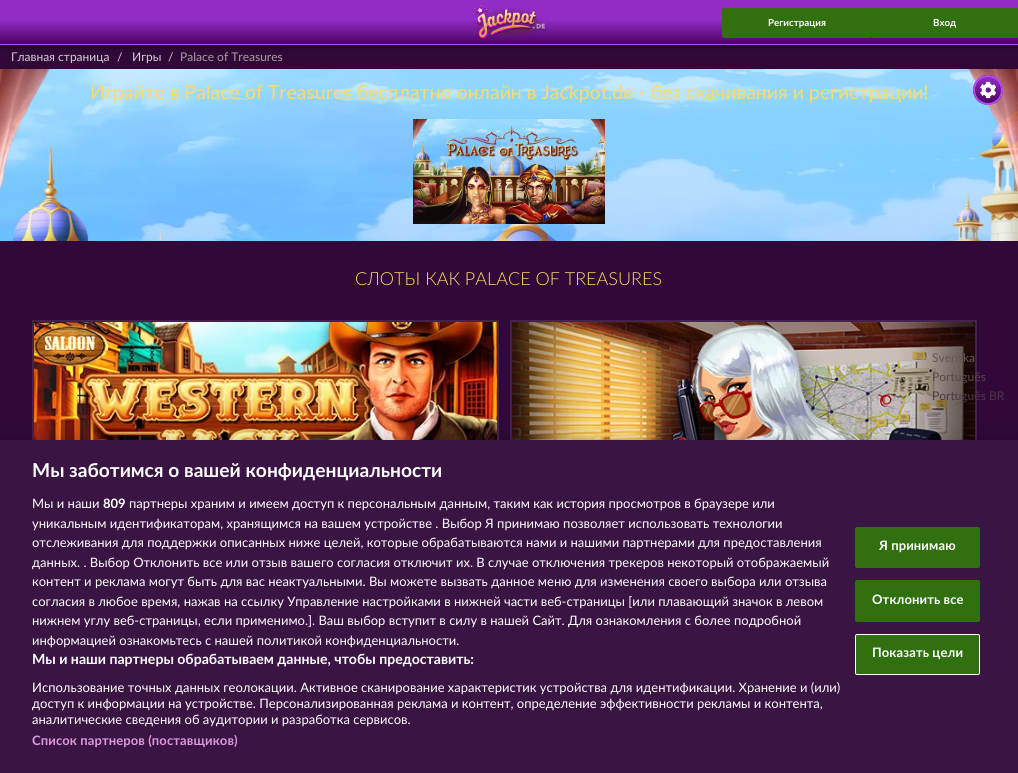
#include <cairo.h>
#include <math.h>
#include <stddef.h>

typedef struct { const char *family; double size; int italic, bold; unsigned color; } style_t;
static cairo_t *ctx;

static void ink(unsigned color) {
    cairo_set_source_rgb(ctx, (color >> 16) / 255.0, (color >> 8 & 255) / 255.0, (color & 255) / 255.0);
}

static void write(double x, double y, const char *s, const style_t *st) {
    cairo_select_font_face(ctx, st->family, st->italic ? CAIRO_FONT_SLANT_ITALIC : CAIRO_FONT_SLANT_NORMAL,
        st->bold ? CAIRO_FONT_WEIGHT_BOLD : CAIRO_FONT_WEIGHT_NORMAL);
    cairo_set_font_size(ctx, st->size);
    ink(st->color);
    cairo_move_to(ctx, x, y);
    cairo_show_text(ctx, s);
}

static void write_spaced(double x, double y, const char *s, double letter, double word) {
    cairo_move_to(ctx, x, y);
    while (*s) {
        char ch[5] = {0};
        int n = 0;
        do ch[n++] = *s++; while ((*s & 0xC0) == 0x80);
        cairo_show_text(ctx, ch);
        cairo_rel_move_to(ctx, letter + word * (*ch == ' '), 0);
    }
}

static void block(double x, double y, double w, double h, unsigned color) {
    ink(color);
    cairo_rectangle(ctx, x, y, w, h);
    cairo_fill(ctx);
}

static void round_path(double x, double y, double w, double h, double r) {
    cairo_new_sub_path(ctx);
    cairo_arc(ctx, x + w - r, y + h - r, r, 0, M_PI / 2);
    cairo_arc(ctx, x + r, y + h - r, r, M_PI / 2, M_PI);
    cairo_arc(ctx, x + r, y + r, r, M_PI, 1.5 * M_PI);
    cairo_arc(ctx, x + w - r, y + r, r, 1.5 * M_PI, 2 * M_PI);
    cairo_close_path(ctx);
}

static void blur_box(double x, double y, double w, double h, double r, double blur, double alpha) {
    cairo_push_group_with_content(ctx, CAIRO_CONTENT_ALPHA);
    cairo_set_operator(ctx, CAIRO_OPERATOR_SOURCE);
    for (int i = 15; i >= -15 && fmin(w, h) + blur * i / 3 > 0; i -= 2) {
        double e = blur * i / 6;
        cairo_set_source_rgba(ctx, 0, 0, 0, alpha * erfc((i - 1) / 8.5) / 2);
        round_path(x - e, y - e, w + 2 * e, h + 2 * e, fmax(0, fmin(r + e + blur * .6, fmin(w, h) / 2 + e)));
        cairo_fill(ctx);
    }
    cairo_pattern_t *soft = cairo_pop_group(ctx);
    cairo_mask(ctx, soft);
    cairo_pattern_destroy(soft);
}

static void paste(const char *path, double x, double y, double w, double h) {
    cairo_surface_t *image = cairo_image_surface_create_from_png(path);
    cairo_save(ctx);
    cairo_set_source_surface(ctx, image, x, y);
    cairo_rectangle(ctx, x, y, w, h);
    cairo_fill(ctx);
    cairo_restore(ctx);
    cairo_surface_destroy(image);
}

static const style_t s1 = {"Lato", 9.75, 0, 1, 0xffffff};
static const style_t s2 = {"Lato", 12, 0, 0, 0xd6ced7};
static const style_t s3 = {"Lato", 12, 0, 0, 0xcccccc};
static const style_t s4 = {"Lato", 12, 0, 0, 0xac9d9d};
static const style_t s5 = {"Lato", 19.5, 0, 0, 0xffd966};
static const style_t s6 = {"Lato Light", 18, 0, 0, 0xffd966};
static const style_t s7 = {"Lato", 12, 0, 0, 0xacdaff};
static const style_t s8 = {"Lato", 12, 0, 0, 0x655751};
static const style_t s9 = {"Lato", 12, 0, 0, 0x59464a};
static const style_t s10 = {"Lato", 12, 0, 0, 0x4e3645};
static const style_t s11 = {"Lato", 19.2, 0, 1, 0xffffff};
static const style_t s12 = {"Lato", 13, 0, 0, 0xffffff};
static const style_t s13 = {"Lato", 13, 0, 1, 0xffffff};
static const style_t s14 = {"Lato", 14.1, 0, 1, 0xffffff};

int main(void) {
    cairo_surface_t *surface = cairo_image_surface_create(CAIRO_FORMAT_RGB24, 1018, 773);
    ctx = cairo_create(surface);
    cairo_font_options_t *options = cairo_font_options_create();
    cairo_font_options_set_hint_metrics(options, CAIRO_HINT_METRICS_OFF);
    cairo_font_options_set_hint_style(options, CAIRO_HINT_STYLE_NONE);
    cairo_set_font_options(ctx, options);
    cairo_set_miter_limit(ctx, 4);
    cairo_pattern_t *gradient;
    ink(0x300939);
    cairo_paint(ctx);
    ink(0x000000);
    blur_box(0, 2, 1018, 45, 0, 3.5, 0.3);
    gradient = cairo_pattern_create_linear(509, 0, 509, 44);
    cairo_pattern_add_color_stop_rgba(gradient, 0.45, 0.569, 0.173, 0.773, 1);
    cairo_pattern_add_color_stop_rgba(gradient, 1, 0.302, 0.008, 0.392, 1);
    cairo_set_source(ctx, gradient);
    cairo_pattern_destroy(gradient);
    cairo_rectangle(ctx, 0, 0, 1018, 44);
    cairo_fill(ctx);
    block(0, 44, 1018, 1, 0xb849f1);
    paste("pic1.png", 472, 5, 74, 36);
    ink(0x30700f);
    round_path(722, 8, 150, 30, 3);
    cairo_fill(ctx);
    write(768, 26, "Регистрация", &s1);
    ink(0x30700f);
    round_path(870, 8, 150, 30, 3);
    cairo_fill(ctx);
    write(933, 26, "Вход", &s1);
    write(11, 61, "Главная страница", &s2);
    write(117, 61, "/", &s3);
    write(132, 61, "Игры", &s2);
    write(168, 61, "/", &s3);
    write(180, 61, "Palace of Treasures", &s4);
    paste("pic2.png", 0, 69, 1018, 172);
    write(90, 99, "Играйте в Palace of Treasures бесплатно онлайн в Jackpot.de - без скачивания и регистрации!", &s5);
    paste("pic3.png", 413, 119, 192, 105);
    write(355, 285, "СЛОТЫ КАК PALACE OF TREASURES", &s6);
    block(32, 320, 467, 120, 0x45224d);
    paste("pic4.png", 34, 322, 463, 118);
    block(510, 320, 467, 120, 0x45224d);
    paste("pic5.png", 512, 322, 463, 118);
    paste("pic6.png", 973, 75, 30, 30);
    cairo_arc(ctx, 988, 90, 14, 0, 2 * M_PI);
    ink(0xb849f1);
    cairo_stroke(ctx);
    write(932, 191, "I", &s7);
    write(932, 362, "Svenska", &s8);
    write(932, 381, "Português", &s9);
    write(932, 400, "Português BR", &s10);
    ink(0x000000);
    blur_box(0, 440, 1018, 333, 0, 9, 0.2);
    block(0, 440, 1018, 333, 0x3a1443);
    write(32, 477, "Мы заботимся о вашей конфиденциальности", &s11);
    write(32, 508, "Мы и наши", &s12);
    write(103, 508, "809", &s13);
    write(129, 508, "партнеры храним и имеем доступ к персональным данным, таким как история просмотров в браузере или", &s12);
    write(32, 528, "уникальным идентификаторам, хранящимся на вашем устройстве . Выбор Я принимаю позволяет использовать технологии", &s12);
    write(32, 547, "отслеживания для поддержки описанных ниже целей, которые обрабатываются нами и нашими партнерами для предоставления", &s12);
    write(32, 567, "данных. . Выбор Отклонить все или отзыв вашего согласия отключит их. В случае отключения трекеров некоторый отображаемый", &s12);
    write(32, 586, "контент и реклама могут быть для вас неактуальными. Вы можете вызвать данное меню для изменения своего выбора или отзыва", &s12);
    write(32, 606, "согласия в любое время, нажав на ссылку Управление настройками в нижней части веб-страницы [или плавающий значок в левом", &s12);
    write(32, 625, "нижнем углу веб-страницы, если применимо.]. Ваш выбор вступит в силу в нашей Сайт. Для ознакомления с более подробной", &s12);
    write(32, 645, "информацией ознакомьтесь с нашей политикой конфиденциальности.", &s12);
    write(32, 664, "Мы и наши партнеры обрабатываем данные, чтобы предоставить:", &s14);
    write(32, 692, "Использование точных данных геолокации. Активное сканирование характеристик устройства для идентификации. Хранение и (или)", &s12);
    write(32, 708, "доступ к информации на устройстве. Персонализированная реклама и контент, определение эффективности рекламы и контента,", &s12);
    write(32, 724, "аналитические сведения об аудитории и разработка сервисов.", &s12);
    cairo_select_font_face(ctx, "Lato", CAIRO_FONT_SLANT_NORMAL, CAIRO_FONT_WEIGHT_BOLD);
    ink(0xdd97dd);
    write_spaced(32, 745, "Список партнеров (поставщиков)", 0.1, 0);
    ink(0x30700f);
    round_path(855.5, 527.5, 124, 40, 1.5);
    cairo_fill_preserve(ctx);
    cairo_set_line_width(ctx, 1);
    cairo_stroke(ctx);
    ink(0xffffff);
    write_spaced(879, 550, "Я принимаю", 0.1, 0);
    ink(0x30700f);
    round_path(855.5, 580.5, 124, 41, 1.5);
    cairo_fill_preserve(ctx);
    cairo_stroke(ctx);
    ink(0xffffff);
    write_spaced(872, 604, "Отклонить все", 0.1, 0);
    ink(0x30700f);
    round_path(855.5, 634.5, 124, 40, 1.5);
    cairo_fill_preserve(ctx);
    ink(0xffffff);
    cairo_stroke(ctx);
    write_spaced(872, 657, "Показать цели", 0.1, 0);
    cairo_surface_write_to_png(surface, "screenshot.png");
    cairo_font_options_destroy(options);
    cairo_destroy(ctx);
    cairo_surface_destroy(surface);
    return 0;
}
